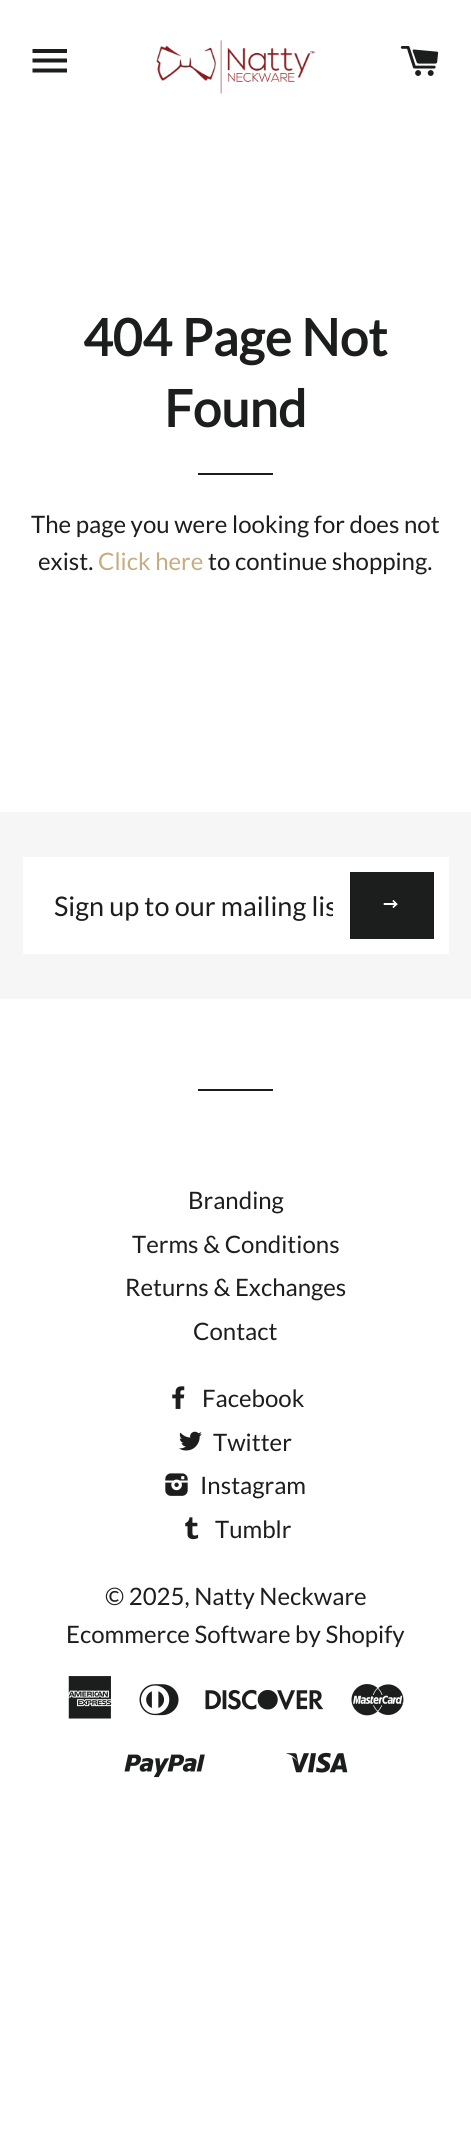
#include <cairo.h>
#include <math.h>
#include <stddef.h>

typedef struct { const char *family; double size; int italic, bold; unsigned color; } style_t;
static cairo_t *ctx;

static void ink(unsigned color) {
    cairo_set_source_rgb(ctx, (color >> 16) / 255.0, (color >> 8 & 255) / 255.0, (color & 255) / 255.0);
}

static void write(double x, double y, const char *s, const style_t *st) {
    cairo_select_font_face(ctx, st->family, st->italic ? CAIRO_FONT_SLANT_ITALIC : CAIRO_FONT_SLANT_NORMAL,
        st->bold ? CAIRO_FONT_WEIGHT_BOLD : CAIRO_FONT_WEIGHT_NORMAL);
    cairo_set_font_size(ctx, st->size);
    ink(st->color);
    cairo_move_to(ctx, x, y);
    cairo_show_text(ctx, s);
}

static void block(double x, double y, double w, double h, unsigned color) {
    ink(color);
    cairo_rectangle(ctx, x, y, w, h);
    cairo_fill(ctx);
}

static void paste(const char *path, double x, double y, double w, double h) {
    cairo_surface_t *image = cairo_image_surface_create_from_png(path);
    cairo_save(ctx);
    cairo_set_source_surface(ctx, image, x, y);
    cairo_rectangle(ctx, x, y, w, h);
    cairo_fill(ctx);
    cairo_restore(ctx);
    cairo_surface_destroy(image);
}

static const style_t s1 = {"Lato", 51, 0, 1, 0x1c1d1d};
static const style_t s2 = {"Lato", 24, 0, 0, 0x1c1d1d};
static const style_t s3 = {"Lato", 24, 0, 0, 0xc7ac7f};
static const style_t s4 = {"Lato", 27, 0, 0, 0x1c1d1d};

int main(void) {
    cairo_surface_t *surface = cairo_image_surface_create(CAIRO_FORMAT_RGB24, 471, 2134);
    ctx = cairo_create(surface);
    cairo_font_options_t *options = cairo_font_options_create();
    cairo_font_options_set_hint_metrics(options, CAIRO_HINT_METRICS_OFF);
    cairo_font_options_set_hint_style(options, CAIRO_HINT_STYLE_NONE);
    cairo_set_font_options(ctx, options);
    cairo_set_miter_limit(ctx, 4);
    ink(0xffffff);
    cairo_paint(ctx);
    ink(0x1c1d1d);
    cairo_new_path(ctx);
    cairo_move_to(ctx, 32.5, 49);
    cairo_line_to(ctx, 67, 49);
    cairo_line_to(ctx, 67, 53);
    cairo_line_to(ctx, 32.5, 53);
    cairo_close_path(ctx);
    cairo_move_to(ctx, 32.5, 58.5);
    cairo_line_to(ctx, 67, 58.5);
    cairo_line_to(ctx, 67, 62.5);
    cairo_line_to(ctx, 32.5, 62.5);
    cairo_close_path(ctx);
    cairo_move_to(ctx, 32.5, 68.5);
    cairo_line_to(ctx, 67, 68.5);
    cairo_line_to(ctx, 67, 72.5);
    cairo_line_to(ctx, 32.5, 72.5);
    cairo_close_path(ctx);
    cairo_fill(ctx);
    paste("pic1.png", 156, 40, 159, 54);
    paste("pic2.png", 400, 46, 39, 30);
    write(83, 356, "404 Page Not", &s1);
    write(164, 427, "Found", &s1);
    block(198, 473, 75, 2, 0x1c1d1d);
    write(31, 533, "The page you were looking for does not", &s2);
    write(38, 570, "exist.", &s2);
    write(98, 570, "Click here", &s3);
    write(208, 570, "to continue shopping.", &s2);
    block(0, 812, 471, 187, 0xf6f6f6);
    block(23, 857, 426, 97, 0xffffff);
    cairo_save(ctx);
    cairo_rectangle(ctx, 54, 890, 279, 33);
    cairo_clip(ctx);
    write(54, 916, "Sign up to our mailing lis", &s4);
    cairo_restore(ctx);
    block(350, 872, 84, 67, 0x1c1d1d);
    paste("pic3.png", 383, 900, 15, 8);
    block(198, 1089, 75, 2, 0x1c1d1d);
    write(188, 1209, "Branding", &s2);
    write(132, 1253, "Terms & Conditions", &s2);
    write(125, 1296, "Returns & Exchanges", &s2);
    write(193, 1340, "Contact", &s2);
    paste("pic4.png", 172, 1386, 13, 23);
    write(202, 1407, "Facebook", &s2);
    paste("pic5.png", 179, 1431, 23, 20);
    write(213, 1451, "Twitter", &s2);
    paste("pic6.png", 165, 1473, 23, 23);
    write(200, 1494, "Instagram", &s2);
    paste("pic7.png", 185, 1517, 14, 23);
    write(215, 1538, "Tumblr", &s2);
    write(105, 1605, "© 2025, Natty Neckware", &s2);
    write(66, 1643, "Ecommerce Software by Shopify", &s2);
    paste("pic8.png", 68, 1676, 44, 43);
    paste("pic9.png", 139, 1684, 40, 32);
    paste("pic10.png", 205, 1689, 119, 21);
    paste("pic11.png", 351, 1684, 53, 32);
    paste("pic12.png", 124, 1754, 81, 24);
    paste("pic13.png", 286, 1752, 62, 21);
    cairo_surface_write_to_png(surface, "screenshot.png");
    cairo_font_options_destroy(options);
    cairo_destroy(ctx);
    cairo_surface_destroy(surface);
    return 0;
}
